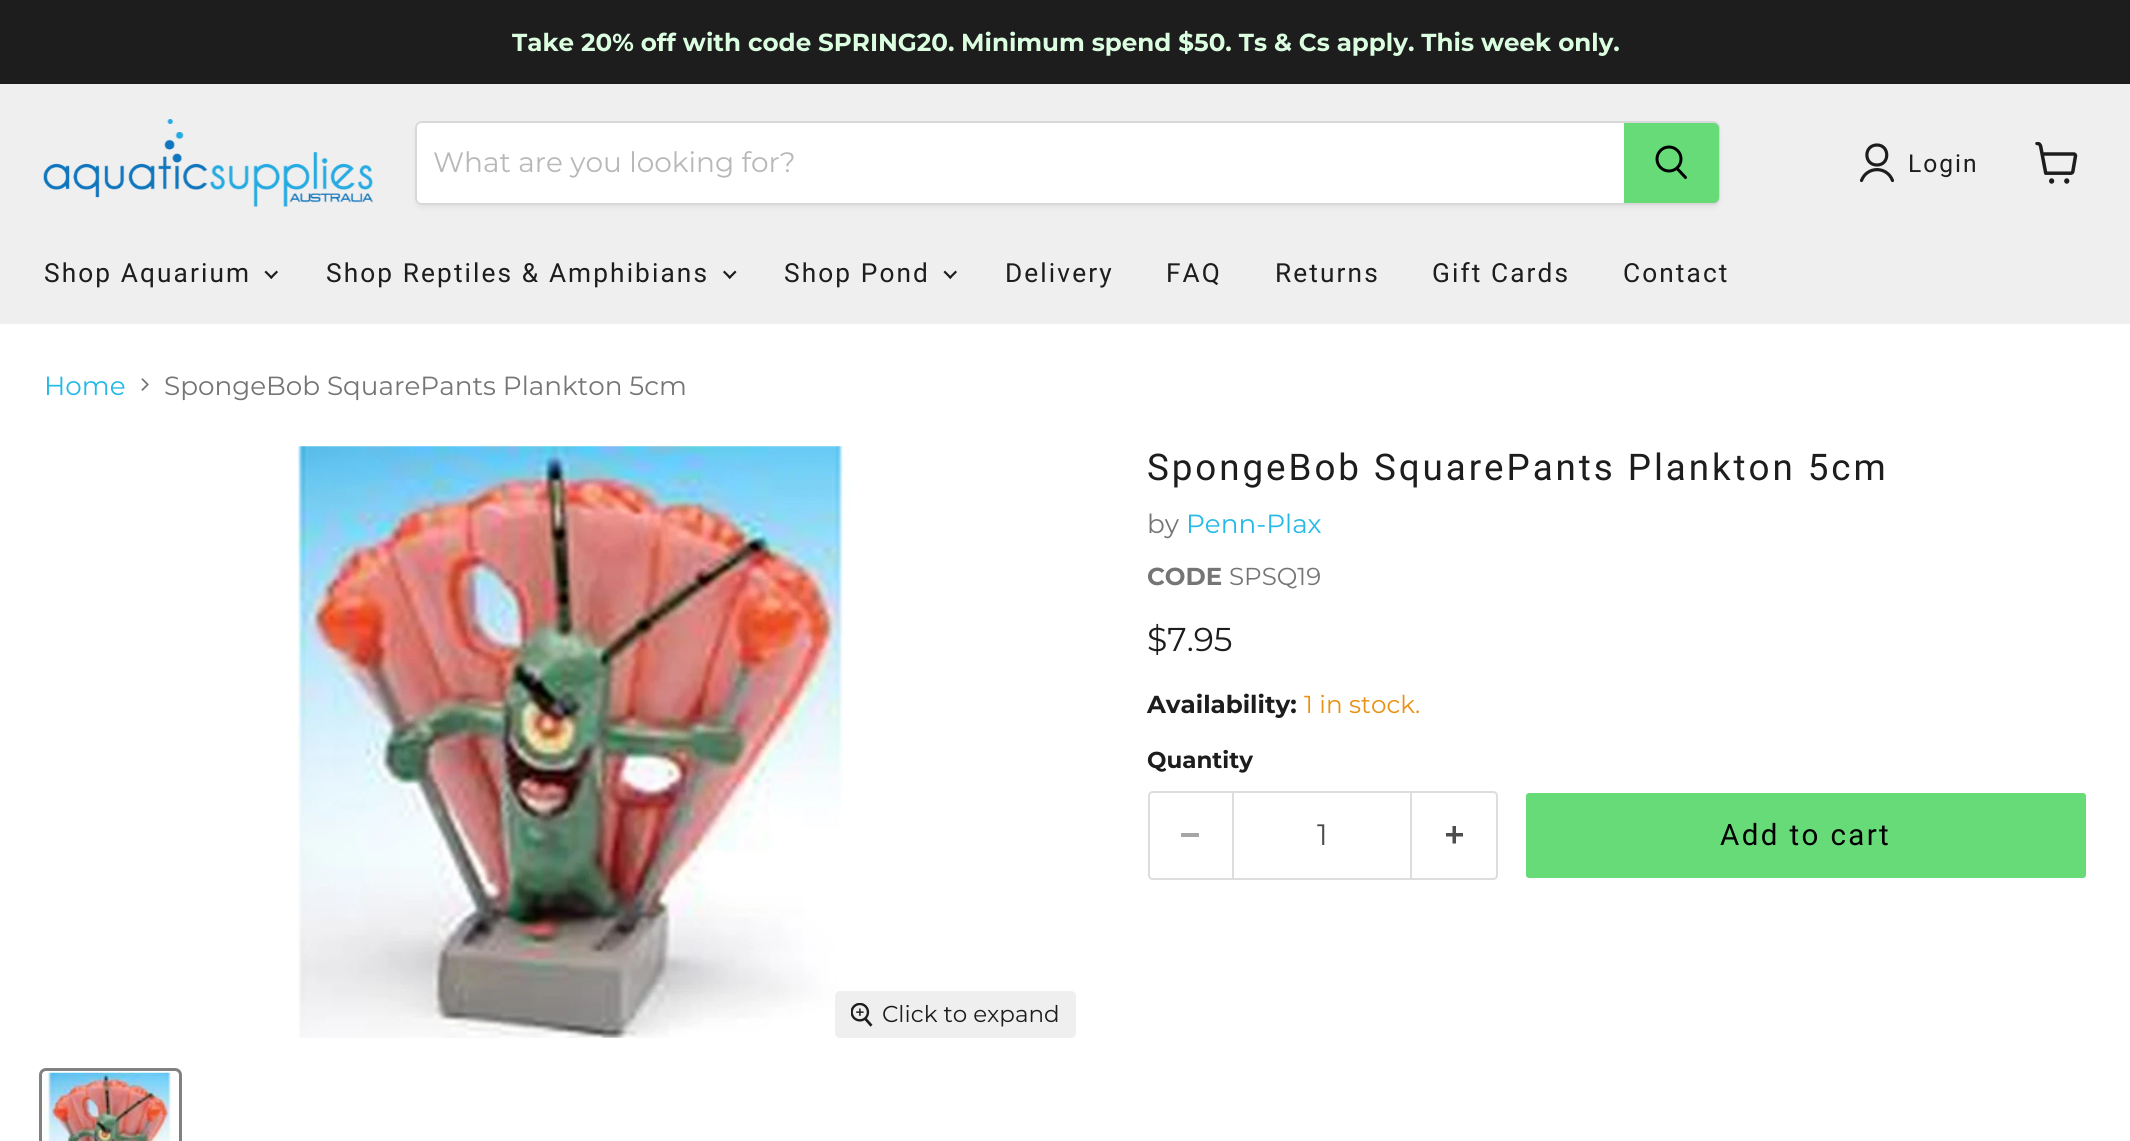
#include <cairo.h>
#include <math.h>
#include <stddef.h>

typedef struct { const char *family; double size; int italic, bold; unsigned color; } style_t;
static cairo_t *ctx;

static void ink(unsigned color) {
    cairo_set_source_rgb(ctx, (color >> 16) / 255.0, (color >> 8 & 255) / 255.0, (color & 255) / 255.0);
}

static void write(double x, double y, const char *s, const style_t *st) {
    cairo_select_font_face(ctx, st->family, st->italic ? CAIRO_FONT_SLANT_ITALIC : CAIRO_FONT_SLANT_NORMAL,
        st->bold ? CAIRO_FONT_WEIGHT_BOLD : CAIRO_FONT_WEIGHT_NORMAL);
    cairo_set_font_size(ctx, st->size);
    ink(st->color);
    cairo_move_to(ctx, x, y);
    cairo_show_text(ctx, s);
}

static void write_spaced(double x, double y, const char *s, double letter, double word) {
    cairo_move_to(ctx, x, y);
    while (*s) {
        char ch[5] = {0};
        int n = 0;
        do ch[n++] = *s++; while ((*s & 0xC0) == 0x80);
        cairo_show_text(ctx, ch);
        cairo_rel_move_to(ctx, letter + word * (*ch == ' '), 0);
    }
}

static void block(double x, double y, double w, double h, unsigned color) {
    ink(color);
    cairo_rectangle(ctx, x, y, w, h);
    cairo_fill(ctx);
}

static void round_path(double x, double y, double w, double h, double r) {
    cairo_new_sub_path(ctx);
    cairo_arc(ctx, x + w - r, y + h - r, r, 0, M_PI / 2);
    cairo_arc(ctx, x + r, y + h - r, r, M_PI / 2, M_PI);
    cairo_arc(ctx, x + r, y + r, r, M_PI, 1.5 * M_PI);
    cairo_arc(ctx, x + w - r, y + r, r, 1.5 * M_PI, 2 * M_PI);
    cairo_close_path(ctx);
}

static void blur_box(double x, double y, double w, double h, double r, double blur, double alpha) {
    cairo_push_group_with_content(ctx, CAIRO_CONTENT_ALPHA);
    cairo_set_operator(ctx, CAIRO_OPERATOR_SOURCE);
    for (int i = 15; i >= -15 && fmin(w, h) + blur * i / 3 > 0; i -= 2) {
        double e = blur * i / 6;
        cairo_set_source_rgba(ctx, 0, 0, 0, alpha * erfc((i - 1) / 8.5) / 2);
        round_path(x - e, y - e, w + 2 * e, h + 2 * e, fmax(0, fmin(r + e + blur * .6, fmin(w, h) / 2 + e)));
        cairo_fill(ctx);
    }
    cairo_pattern_t *soft = cairo_pop_group(ctx);
    cairo_mask(ctx, soft);
    cairo_pattern_destroy(soft);
}

static void paste(const char *path, double x, double y, double w, double h) {
    cairo_surface_t *image = cairo_image_surface_create_from_png(path);
    cairo_save(ctx);
    cairo_set_source_surface(ctx, image, x, y);
    cairo_rectangle(ctx, x, y, w, h);
    cairo_fill(ctx);
    cairo_restore(ctx);
    cairo_surface_destroy(image);
}

static const style_t s1 = {"Montserrat", 24.6, 0, 1, 0xdbfde0};
static const style_t s2 = {"Montserrat", 28, 0, 0, 0xb8b8b8};
static const style_t s3 = {"Montserrat", 26.25, 0, 0, 0x25b9e6};
static const style_t s4 = {"Montserrat", 26.25, 0, 0, 0x757575};
static const style_t s5 = {"Montserrat", 24.5, 0, 1, 0x757575};
static const style_t s6 = {"Montserrat", 24.5, 0, 0, 0x757575};
static const style_t s7 = {"Montserrat", 33, 0, 0, 0x1d1d1d};
static const style_t s8 = {"Montserrat", 24.6, 0, 1, 0x1d1d1d};
static const style_t s9 = {"Montserrat", 24.6, 0, 0, 0xe99114};
static const style_t s10 = {"Montserrat", 23, 0, 1, 0x1d1d1d};
static const style_t s11 = {"Montserrat", 29.5, 0, 0, 0x4d4d4d};
static const style_t s12 = {"Montserrat", 23, 0, 0, 0x1d1d1d};

int main(void) {
    cairo_surface_t *surface = cairo_image_surface_create(CAIRO_FORMAT_RGB24, 2130, 1141);
    ctx = cairo_create(surface);
    cairo_font_options_t *options = cairo_font_options_create();
    cairo_font_options_set_hint_metrics(options, CAIRO_HINT_METRICS_OFF);
    cairo_font_options_set_hint_style(options, CAIRO_HINT_STYLE_NONE);
    cairo_set_font_options(ctx, options);
    cairo_set_miter_limit(ctx, 4);
    ink(0xffffff);
    cairo_paint(ctx);
    block(0, 0, 2130, 84, 0x1d1d1d);
    write(512, 51, "Take 20% off with code SPRING20.", &s1);
    write(961, 51, "Minimum spend $50. Ts & Cs apply. This week only.", &s1);
    block(0, 84, 2130, 240, 0xefefef);
    paste("pic1.png", 43, 119, 330, 88);
    cairo_save(ctx);
    cairo_set_fill_rule(ctx, CAIRO_FILL_RULE_EVEN_ODD);
    cairo_new_path(ctx);
    cairo_move_to(ctx, 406, 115);
    cairo_line_to(ctx, 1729, 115);
    cairo_line_to(ctx, 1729, 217);
    cairo_line_to(ctx, 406, 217);
    cairo_close_path(ctx);
    cairo_move_to(ctx, 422, 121);
    cairo_line_to(ctx, 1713, 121);
    cairo_curve_to(ctx, 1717, 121, 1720, 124, 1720, 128);
    cairo_line_to(ctx, 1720, 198);
    cairo_curve_to(ctx, 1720, 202, 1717, 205, 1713, 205);
    cairo_line_to(ctx, 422, 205);
    cairo_curve_to(ctx, 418, 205, 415, 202, 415, 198);
    cairo_line_to(ctx, 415, 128);
    cairo_curve_to(ctx, 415, 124, 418, 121, 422, 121);
    cairo_close_path(ctx);
    cairo_clip(ctx);
    ink(0x808080);
    blur_box(415, 124, 1305, 84, 7, 2.5, 0.11);
    cairo_restore(ctx);
    round_path(416, 122, 1303, 82, 6);
    cairo_set_source_rgba(ctx, 0.502, 0.502, 0.502, 0.2);
    cairo_stroke(ctx);
    ink(0xffffff);
    cairo_new_path(ctx);
    cairo_move_to(ctx, 422, 123);
    cairo_line_to(ctx, 1624, 123);
    cairo_line_to(ctx, 1624, 203);
    cairo_line_to(ctx, 422, 203);
    cairo_curve_to(ctx, 419, 203, 417, 201, 417, 198);
    cairo_line_to(ctx, 417, 128);
    cairo_curve_to(ctx, 417, 125, 419, 123, 422, 123);
    cairo_close_path(ctx);
    cairo_fill(ctx);
    write(433, 172, "What are you looking for?", &s2);
    ink(0x68db79);
    cairo_new_path(ctx);
    cairo_move_to(ctx, 1625, 124);
    cairo_line_to(ctx, 1714, 124);
    cairo_curve_to(ctx, 1716, 124, 1718, 126, 1718, 128);
    cairo_line_to(ctx, 1718, 198);
    cairo_curve_to(ctx, 1718, 200, 1716, 202, 1714, 202);
    cairo_line_to(ctx, 1625, 202);
    cairo_close_path(ctx);
    cairo_fill_preserve(ctx);
    cairo_stroke(ctx);
    cairo_new_path(ctx);
    cairo_move_to(ctx, 1685.5, 177.5);
    cairo_line_to(ctx, 1677.5, 169);
    ink(0x000000);
    cairo_set_line_width(ctx, 3);
    cairo_set_line_cap(ctx, CAIRO_LINE_CAP_ROUND);
    cairo_stroke(ctx);
    cairo_arc(ctx, 1669, 159, 12, 0, 2 * M_PI);
    cairo_set_line_cap(ctx, CAIRO_LINE_CAP_BUTT);
    cairo_stroke(ctx);
    cairo_new_path(ctx);
    cairo_move_to(ctx, 1877, 165);
    cairo_curve_to(ctx, 1890, 165, 1890, 145, 1877, 145);
    cairo_curve_to(ctx, 1863.5, 145, 1863.5, 165, 1877, 165);
    cairo_close_path(ctx);
    cairo_move_to(ctx, 1892.5, 180.5);
    cairo_curve_to(ctx, 1887, 166, 1867, 166, 1861.5, 180.5);
    ink(0x1d1d1d);
    cairo_set_line_width(ctx, 3.2);
    cairo_set_line_cap(ctx, CAIRO_LINE_CAP_ROUND);
    cairo_set_line_join(ctx, CAIRO_LINE_JOIN_ROUND);
    cairo_stroke(ctx);
    cairo_select_font_face(ctx, "Roboto", CAIRO_FONT_SLANT_NORMAL, CAIRO_FONT_WEIGHT_NORMAL);
    cairo_set_font_size(ctx, 24.6);
    write_spaced(1908, 172, "Login", 2, 0);
    paste("pic2.png", 2035, 142, 43, 42);
    cairo_set_font_size(ctx, 26.25);
    write_spaced(44, 282, "Shop Aquarium", 2.1, 0);
    paste("pic3.png", 264, 270, 14, 9);
    write_spaced(326, 282, "Shop Reptiles & Amphibians", 2.1, 0);
    paste("pic4.png", 723, 270, 14, 9);
    write_spaced(784, 282, "Shop Pond", 2.1, 0);
    paste("pic3.png", 943, 270, 14, 9);
    write_spaced(1005, 282, "Delivery", 2.1, 0);
    write_spaced(1166, 282, "FAQ", 2.1, 0);
    write_spaced(1275, 282, "Returns", 2.1, 0);
    write_spaced(1432, 282, "Gift Cards", 2.1, 0);
    write_spaced(1623, 282, "Contact", 2.1, 0);
    write(44, 395, "Home", &s3);
    paste("pic5.png", 141, 378, 8, 13);
    write(164, 395, "SpongeBob SquarePants Plankton 5cm", &s4);
    cairo_select_font_face(ctx, "Roboto", CAIRO_FONT_SLANT_NORMAL, CAIRO_FONT_WEIGHT_NORMAL);
    cairo_set_font_size(ctx, 36.75);
    ink(0x1d1d1d);
    write_spaced(1147, 480, "SpongeBob SquarePants Plankton 5cm", 2.95, 0);
    write(1147, 533, "by", &s4);
    write(1186, 533, "Penn-Plax", &s3);
    write(1147, 585, "CODE", &s5);
    write(1229, 585, "SPSQ19", &s6);
    write(1147, 651, "$7.95", &s7);
    write(1147, 713, "Availability:", &s8);
    write(1304, 713, "1 in stock.", &s9);
    write(1147, 768, "Quantity", &s10);
    ink(0xdddddd);
    cairo_set_fill_rule(ctx, CAIRO_FILL_RULE_EVEN_ODD);
    cairo_new_path(ctx);
    cairo_move_to(ctx, 1153, 791);
    cairo_line_to(ctx, 1232, 791);
    cairo_line_to(ctx, 1232, 880);
    cairo_line_to(ctx, 1153, 880);
    cairo_curve_to(ctx, 1150, 880, 1148, 878, 1148, 875);
    cairo_line_to(ctx, 1148, 796);
    cairo_curve_to(ctx, 1148, 793, 1150, 791, 1153, 791);
    cairo_close_path(ctx);
    cairo_move_to(ctx, 1153, 793);
    cairo_line_to(ctx, 1232, 793);
    cairo_line_to(ctx, 1232, 878);
    cairo_line_to(ctx, 1153, 878);
    cairo_curve_to(ctx, 1151, 878, 1150, 877, 1150, 875);
    cairo_line_to(ctx, 1150, 796);
    cairo_curve_to(ctx, 1150, 794, 1151, 793, 1153, 793);
    cairo_close_path(ctx);
    cairo_fill(ctx);
    block(1181, 833, 18, 4, 0xa6a6a6);
    cairo_rectangle(ctx, 1233, 792, 178, 87);
    ink(0xdddddd);
    cairo_set_line_width(ctx, 2);
    cairo_set_line_cap(ctx, CAIRO_LINE_CAP_BUTT);
    cairo_set_line_join(ctx, CAIRO_LINE_JOIN_MITER);
    cairo_stroke(ctx);
    write(1317, 845, "1", &s11);
    ink(0xdddddd);
    cairo_new_path(ctx);
    cairo_move_to(ctx, 1412, 791);
    cairo_line_to(ctx, 1493, 791);
    cairo_curve_to(ctx, 1496, 791, 1498, 793, 1498, 796);
    cairo_line_to(ctx, 1498, 875);
    cairo_curve_to(ctx, 1498, 878, 1496, 880, 1493, 880);
    cairo_line_to(ctx, 1412, 880);
    cairo_close_path(ctx);
    cairo_move_to(ctx, 1412, 793);
    cairo_line_to(ctx, 1493, 793);
    cairo_curve_to(ctx, 1495, 793, 1496, 794, 1496, 796);
    cairo_line_to(ctx, 1496, 875);
    cairo_curve_to(ctx, 1496, 877, 1495, 878, 1493, 878);
    cairo_line_to(ctx, 1412, 878);
    cairo_close_path(ctx);
    cairo_fill(ctx);
    paste("pic6.png", 1446, 826, 17, 18);
    ink(0x68db79);
    round_path(1525, 792, 562, 87, 4);
    cairo_fill_preserve(ctx);
    ink(0xffffff);
    cairo_stroke(ctx);
    cairo_select_font_face(ctx, "Roboto", CAIRO_FONT_SLANT_NORMAL, CAIRO_FONT_WEIGHT_NORMAL);
    ink(0x000000);
    write_spaced(1720, 845, "Add to cart", 2.4, 0);
    paste("pic7.png", 297, 446, 554, 592);
    ink(0xefefef);
    round_path(835, 991, 241, 47, 5);
    cairo_fill(ctx);
    paste("pic8.png", 851, 1003, 22, 24);
    write(882, 1022, "Click to expand", &s12);
    round_path(40.5, 1069.5, 140, 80, 5.5);
    ink(0x818181);
    cairo_set_line_width(ctx, 3);
    cairo_stroke(ctx);
    paste("pic9.png", 44, 1072, 128, 69);
    cairo_surface_write_to_png(surface, "screenshot.png");
    cairo_font_options_destroy(options);
    cairo_destroy(ctx);
    cairo_surface_destroy(surface);
    return 0;
}
